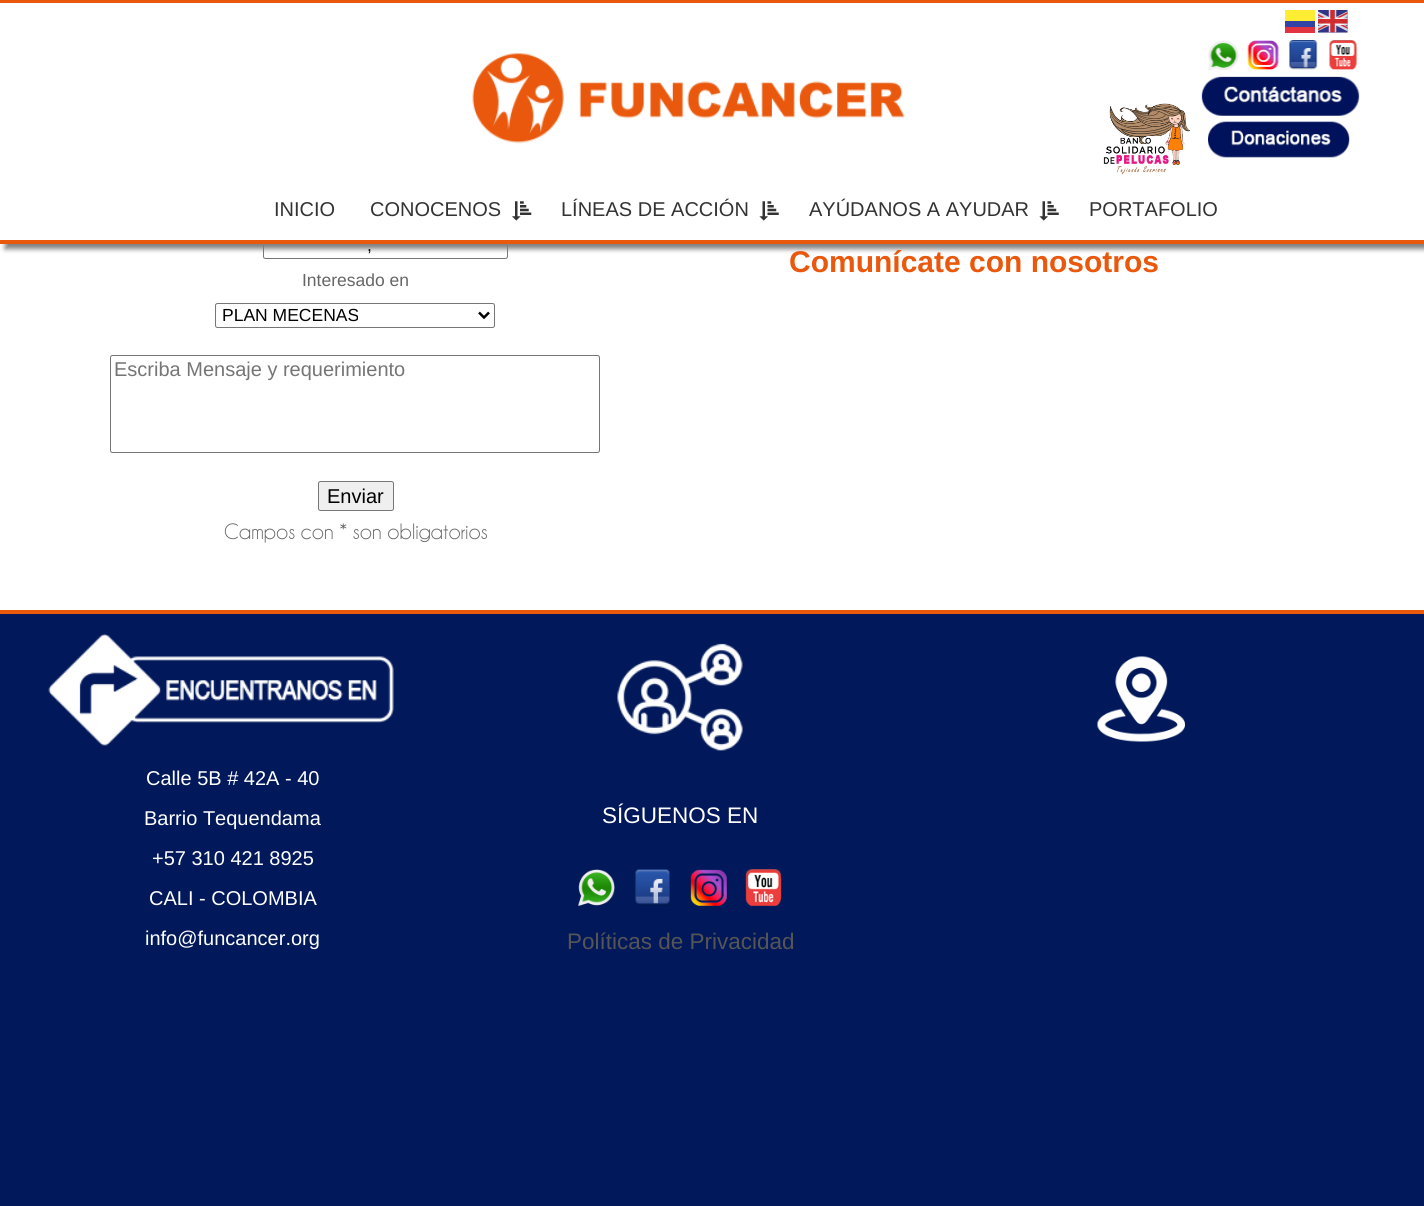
#include <cairo.h>
#include <math.h>
#include <stddef.h>

typedef struct { const char *family; double size; int italic, bold; unsigned color; } style_t;
static cairo_t *ctx;

static void ink(unsigned color) {
    cairo_set_source_rgb(ctx, (color >> 16) / 255.0, (color >> 8 & 255) / 255.0, (color & 255) / 255.0);
}

static void write(double x, double y, const char *s, const style_t *st) {
    cairo_select_font_face(ctx, st->family, st->italic ? CAIRO_FONT_SLANT_ITALIC : CAIRO_FONT_SLANT_NORMAL,
        st->bold ? CAIRO_FONT_WEIGHT_BOLD : CAIRO_FONT_WEIGHT_NORMAL);
    cairo_set_font_size(ctx, st->size);
    ink(st->color);
    cairo_move_to(ctx, x, y);
    cairo_show_text(ctx, s);
}

static void block(double x, double y, double w, double h, unsigned color) {
    ink(color);
    cairo_rectangle(ctx, x, y, w, h);
    cairo_fill(ctx);
}

static void round_path(double x, double y, double w, double h, double r) {
    cairo_new_sub_path(ctx);
    cairo_arc(ctx, x + w - r, y + h - r, r, 0, M_PI / 2);
    cairo_arc(ctx, x + r, y + h - r, r, M_PI / 2, M_PI);
    cairo_arc(ctx, x + r, y + r, r, M_PI, 1.5 * M_PI);
    cairo_arc(ctx, x + w - r, y + r, r, 1.5 * M_PI, 2 * M_PI);
    cairo_close_path(ctx);
}

static void blur_box(double x, double y, double w, double h, double r, double blur, double alpha) {
    cairo_push_group_with_content(ctx, CAIRO_CONTENT_ALPHA);
    cairo_set_operator(ctx, CAIRO_OPERATOR_SOURCE);
    for (int i = 15; i >= -15 && fmin(w, h) + blur * i / 3 > 0; i -= 2) {
        double e = blur * i / 6;
        cairo_set_source_rgba(ctx, 0, 0, 0, alpha * erfc((i - 1) / 8.5) / 2);
        round_path(x - e, y - e, w + 2 * e, h + 2 * e, fmax(0, fmin(r + e + blur * .6, fmin(w, h) / 2 + e)));
        cairo_fill(ctx);
    }
    cairo_pattern_t *soft = cairo_pop_group(ctx);
    cairo_mask(ctx, soft);
    cairo_pattern_destroy(soft);
}

static void paste(const char *path, double x, double y, double w, double h) {
    cairo_surface_t *image = cairo_image_surface_create_from_png(path);
    cairo_save(ctx);
    cairo_set_source_surface(ctx, image, x, y);
    cairo_rectangle(ctx, x, y, w, h);
    cairo_fill(ctx);
    cairo_restore(ctx);
    cairo_surface_destroy(image);
}

static const style_t s1 = {"Liberation Sans", 20, 0, 0, 0x333333};
static const style_t s2 = {"Liberation Sans", 17.5, 0, 0, 0x000000};
static const style_t s3 = {"Liberation Sans", 17.5, 0, 0, 0x666666};
static const style_t s4 = {"Liberation Sans", 20, 0, 0, 0x757575};
static const style_t s5 = {"Liberation Sans", 20, 0, 0, 0x000000};
static const style_t s6 = {"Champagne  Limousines", 22.5, 0, 0, 0x666666};
static const style_t s7 = {"Liberation Sans", 30, 0, 1, 0xe9580c};
static const style_t s8 = {"Liberation Sans", 20, 0, 0, 0xffffff};
static const style_t s9 = {"Liberation Sans", 22.5, 0, 0, 0xffffff};
static const style_t s10 = {"Liberation Sans", 22.5, 0, 0, 0x555555};

int main(void) {
    cairo_surface_t *surface = cairo_image_surface_create(CAIRO_FORMAT_RGB24, 1424, 1206);
    ctx = cairo_create(surface);
    cairo_font_options_t *options = cairo_font_options_create();
    cairo_font_options_set_hint_metrics(options, CAIRO_HINT_METRICS_OFF);
    cairo_font_options_set_hint_style(options, CAIRO_HINT_STYLE_NONE);
    cairo_set_font_options(ctx, options);
    cairo_set_miter_limit(ctx, 4);
    ink(0xffffff);
    cairo_paint(ctx);
    round_path(263.5, 231.5, 244, 27, 2);
    ink(0x767676);
    cairo_set_line_width(ctx, 1);
    cairo_stroke(ctx);
    ink(0x808080);
    blur_box(5, 5, 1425, 244, 0, 2.5, 1);
    block(0, 3, 1424, 237, 0xffffff);
    block(1285, 10, 30, 11, 0xffed33);
    paste("pic1.png", 1318, 10, 30, 23);
    block(1285, 21, 30, 6, 0x3343a5);
    block(1285, 27, 30, 6, 0xe13340);
    paste("pic2.png", 1201, 76, 159, 40);
    paste("pic3.png", 1103, 103, 87, 72);
    paste("pic4.png", 1208, 121, 142, 37);
    block(0, 0, 1424, 3, 0xe9580c);
    block(0, 240, 1424, 4, 0xe9580c);
    paste("pic5.png", 472, 53, 433, 91);
    paste("pic6.png", 1208, 40, 31, 31);
    paste("pic7.png", 1247, 40, 32, 30);
    paste("pic8.png", 1289, 40, 29, 30);
    paste("pic9.png", 1329, 40, 29, 30);
    write(274, 216, "INICIO", &s1);
    write(370, 216, "CONOCENOS", &s1);
    paste("pic10.png", 512, 201, 20, 20);
    write(561, 216, "LÍNEAS DE ACCIÓN", &s1);
    paste("pic11.png", 759, 201, 20, 20);
    write(809, 216, "AYÚDANOS A AYUDAR", &s1);
    paste("pic11.png", 1039, 201, 20, 20);
    write(1089, 216, "PORTAFOLIO", &s1);
    write(367, 251, ",", &s2);
    write(302, 286, "Interesado en", &s3);
    round_path(215.5, 303.5, 279, 24, 2);
    ink(0x767676);
    cairo_stroke(ctx);
    cairo_new_path(ctx);
    cairo_move_to(ctx, 479, 312.5);
    cairo_line_to(ctx, 484, 317.5);
    cairo_line_to(ctx, 489, 312.5);
    ink(0x000000);
    cairo_set_line_width(ctx, 2.5);
    cairo_stroke(ctx);
    write(222, 321, "PLAN MECENAS", &s2);
    round_path(110.5, 355.5, 489, 97, 2);
    ink(0x767676);
    cairo_set_line_width(ctx, 1);
    cairo_stroke(ctx);
    write(114, 376, "Escriba Mensaje y requerimiento", &s4);
    ink(0xefefef);
    round_path(318.5, 481.5, 75, 29, 2);
    cairo_fill_preserve(ctx);
    ink(0x767676);
    cairo_stroke(ctx);
    write(327, 503, "Enviar", &s5);
    write(224, 539, "Campos con * son obligatorios", &s6);
    write(789, 272, "Comunícate con nosotros", &s7);
    block(0, 614, 1424, 592, 0x01195a);
    block(0, 610, 1424, 4, 0xe9580c);
    paste("pic12.png", 1097, 656, 88, 86);
    paste("pic13.png", 48, 634, 346, 112);
    write(146, 785, "Calle 5B # 42A - 40", &s8);
    write(144, 825, "Barrio Tequendama", &s8);
    write(152, 865, "+57 310 421 8925", &s8);
    write(149, 905, "CALI - COLOMBIA", &s8);
    write(145, 945, "info@funcancer.org", &s8);
    paste("pic14.png", 617, 643, 126, 108);
    write(602, 823, "SÍGUENOS EN", &s9);
    paste("pic15.png", 578, 869, 37, 37);
    paste("pic16.png", 634, 869, 36, 37);
    paste("pic17.png", 690, 869, 37, 37);
    paste("pic18.png", 745, 869, 37, 37);
    write(567, 949, "Políticas de Privacidad", &s10);
    cairo_surface_write_to_png(surface, "screenshot.png");
    cairo_font_options_destroy(options);
    cairo_destroy(ctx);
    cairo_surface_destroy(surface);
    return 0;
}
